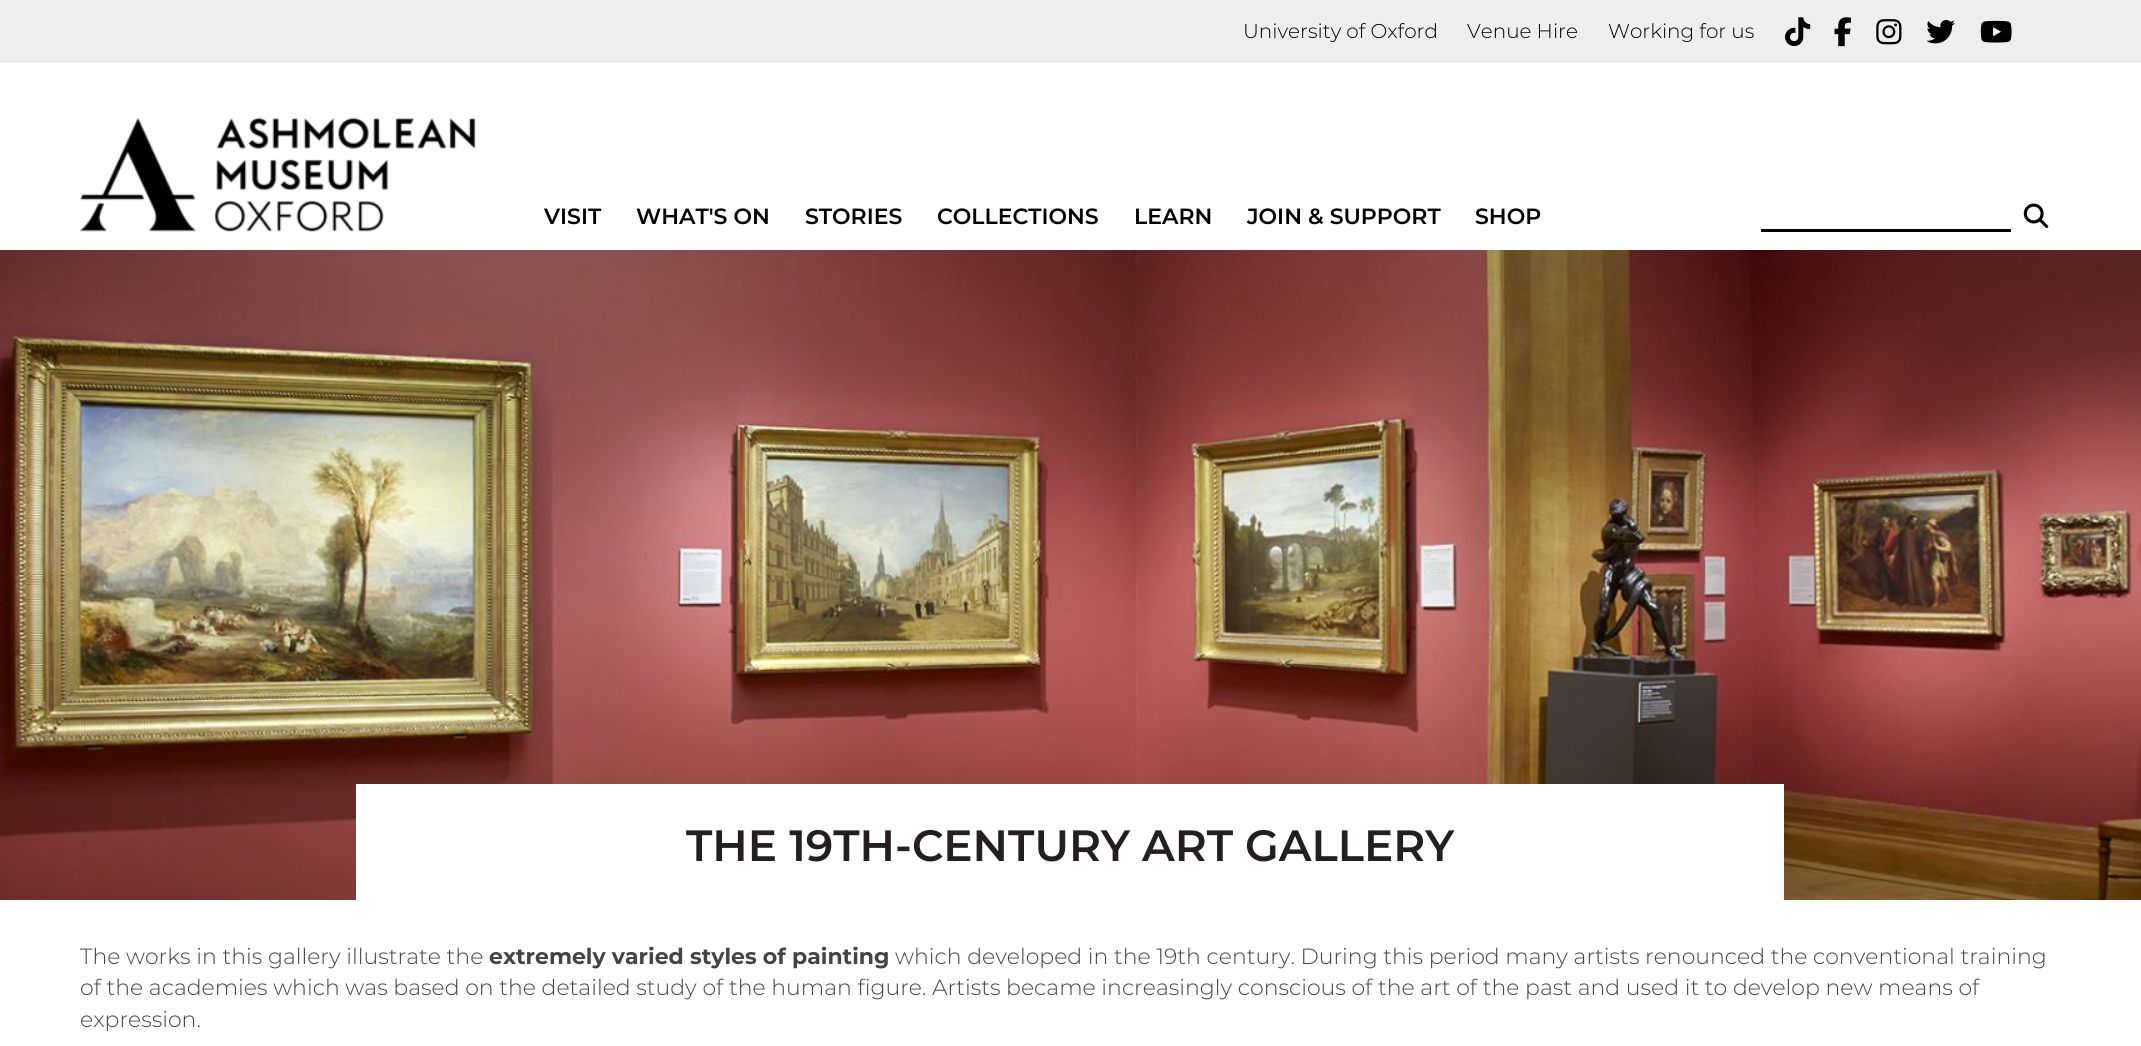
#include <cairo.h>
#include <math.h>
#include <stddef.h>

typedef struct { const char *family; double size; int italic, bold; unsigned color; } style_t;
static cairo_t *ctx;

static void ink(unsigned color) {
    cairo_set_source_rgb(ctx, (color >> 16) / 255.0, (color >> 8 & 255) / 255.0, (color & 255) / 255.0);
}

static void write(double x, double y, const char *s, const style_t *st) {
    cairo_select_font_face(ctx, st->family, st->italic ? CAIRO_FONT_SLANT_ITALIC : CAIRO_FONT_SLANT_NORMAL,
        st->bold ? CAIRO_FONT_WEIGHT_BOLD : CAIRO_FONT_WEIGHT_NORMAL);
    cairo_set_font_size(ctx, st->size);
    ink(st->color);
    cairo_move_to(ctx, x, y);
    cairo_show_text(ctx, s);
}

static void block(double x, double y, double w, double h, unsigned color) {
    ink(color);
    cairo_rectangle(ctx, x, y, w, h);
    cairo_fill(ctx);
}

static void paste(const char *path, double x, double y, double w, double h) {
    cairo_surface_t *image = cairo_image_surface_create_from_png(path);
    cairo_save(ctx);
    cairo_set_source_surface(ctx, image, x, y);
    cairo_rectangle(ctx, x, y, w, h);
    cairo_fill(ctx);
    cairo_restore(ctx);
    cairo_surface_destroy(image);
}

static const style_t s1 = {"Montserrat Light", 20, 0, 0, 0x000000};
static const style_t s2 = {"Montserrat SemiBold", 22, 0, 0, 0x000000};
static const style_t s3 = {"Montserrat SemiBold", 43.75, 0, 0, 0x231f20};
static const style_t s4 = {"Montserrat Light", 22, 0, 0, 0x444444};
static const style_t s5 = {"Montserrat", 22, 0, 1, 0x444444};

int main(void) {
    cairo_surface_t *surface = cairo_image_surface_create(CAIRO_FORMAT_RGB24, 2141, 1046);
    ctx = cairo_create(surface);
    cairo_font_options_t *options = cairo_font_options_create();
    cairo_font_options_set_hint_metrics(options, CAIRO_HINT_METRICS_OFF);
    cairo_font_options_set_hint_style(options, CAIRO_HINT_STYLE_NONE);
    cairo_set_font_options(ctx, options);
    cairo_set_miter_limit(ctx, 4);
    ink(0xffffff);
    cairo_paint(ctx);
    block(0, 0, 2141, 63, 0xeeeeee);
    write(1243, 38, "University of Oxford", &s1);
    write(1467, 38, "Venue Hire", &s1);
    write(1608, 38, "Working for us", &s1);
    paste("pic1.png", 1785, 17, 26, 30);
    paste("pic2.png", 1834, 17, 17, 30);
    paste("pic3.png", 1876, 19, 26, 26);
    paste("pic4.png", 1926, 20, 29, 24);
    paste("pic5.png", 1980, 20, 32, 23);
    paste("pic6.png", 80, 117, 396, 115);
    write(544, 224, "VISIT", &s2);
    write(636, 224, "WHAT'S ON", &s2);
    write(805, 224, "STORIES", &s2);
    write(937, 224, "COLLECTIONS", &s2);
    write(1134, 224, "LEARN", &s2);
    write(1247, 224, "JOIN & SUPPORT", &s2);
    write(1475, 224, "SHOP", &s2);
    paste("pic7.png", 2023, 203, 26, 25);
    block(1761, 229, 250, 3, 0x000000);
    paste("pic8.png", 0, 250, 2141, 650);
    block(356, 784, 1428, 116, 0xffffff);
    write(686, 861, "THE 19TH-CENTURY ART GALLERY", &s3);
    write(80, 964, "The works in this gallery illustrate the", &s4);
    write(489, 964, "extremely varied styles of painting", &s5);
    write(895, 964, "which developed in the 19th century. During this period many artists renounced the conventional training", &s4);
    write(80, 995, "of the academies which was based on the detailed study of the human figure. Artists became increasingly conscious of the art of the past and used it to develop new means of", &s4);
    write(80, 1027, "expression.", &s4);
    cairo_surface_write_to_png(surface, "screenshot.png");
    cairo_font_options_destroy(options);
    cairo_destroy(ctx);
    cairo_surface_destroy(surface);
    return 0;
}
